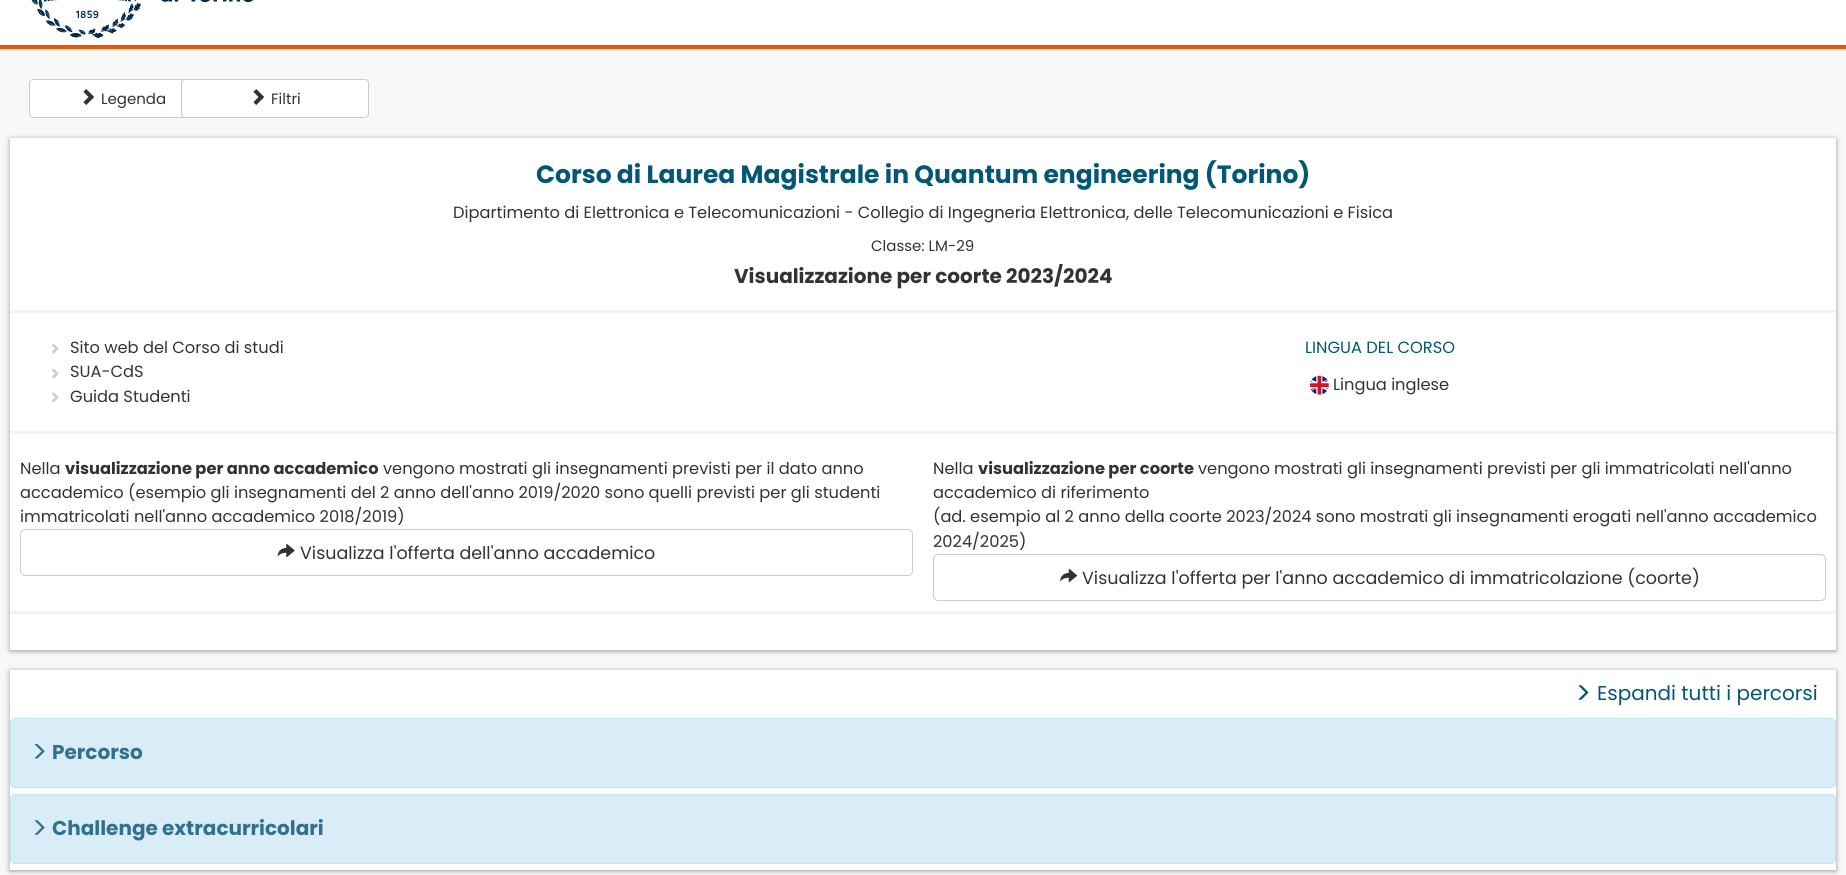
#include <cairo.h>
#include <math.h>
#include <stddef.h>

typedef struct { const char *family; double size; int italic, bold; unsigned color; } style_t;
static cairo_t *ctx;

static void ink(unsigned color) {
    cairo_set_source_rgb(ctx, (color >> 16) / 255.0, (color >> 8 & 255) / 255.0, (color & 255) / 255.0);
}

static void write(double x, double y, const char *s, const style_t *st) {
    cairo_select_font_face(ctx, st->family, st->italic ? CAIRO_FONT_SLANT_ITALIC : CAIRO_FONT_SLANT_NORMAL,
        st->bold ? CAIRO_FONT_WEIGHT_BOLD : CAIRO_FONT_WEIGHT_NORMAL);
    cairo_set_font_size(ctx, st->size);
    ink(st->color);
    cairo_move_to(ctx, x, y);
    cairo_show_text(ctx, s);
}

static void block(double x, double y, double w, double h, unsigned color) {
    ink(color);
    cairo_rectangle(ctx, x, y, w, h);
    cairo_fill(ctx);
}

static void round_path(double x, double y, double w, double h, double r) {
    cairo_new_sub_path(ctx);
    cairo_arc(ctx, x + w - r, y + h - r, r, 0, M_PI / 2);
    cairo_arc(ctx, x + r, y + h - r, r, M_PI / 2, M_PI);
    cairo_arc(ctx, x + r, y + r, r, M_PI, 1.5 * M_PI);
    cairo_arc(ctx, x + w - r, y + r, r, 1.5 * M_PI, 2 * M_PI);
    cairo_close_path(ctx);
}

static void blur_box(double x, double y, double w, double h, double r, double blur, double alpha) {
    cairo_push_group_with_content(ctx, CAIRO_CONTENT_ALPHA);
    cairo_set_operator(ctx, CAIRO_OPERATOR_SOURCE);
    for (int i = 15; i >= -15 && fmin(w, h) + blur * i / 3 > 0; i -= 2) {
        double e = blur * i / 6;
        cairo_set_source_rgba(ctx, 0, 0, 0, alpha * erfc((i - 1) / 8.5) / 2);
        round_path(x - e, y - e, w + 2 * e, h + 2 * e, fmax(0, fmin(r + e + blur * .6, fmin(w, h) / 2 + e)));
        cairo_fill(ctx);
    }
    cairo_pattern_t *soft = cairo_pop_group(ctx);
    cairo_mask(ctx, soft);
    cairo_pattern_destroy(soft);
}

static void paste(const char *path, double x, double y, double w, double h) {
    cairo_surface_t *image = cairo_image_surface_create_from_png(path);
    cairo_save(ctx);
    cairo_set_source_surface(ctx, image, x, y);
    cairo_rectangle(ctx, x, y, w, h);
    cairo_fill(ctx);
    cairo_restore(ctx);
    cairo_surface_destroy(image);
}

static const style_t s1 = {"Poppins", 15, 0, 0, 0x333333};
static const style_t s2 = {"Poppins", 25, 0, 1, 0x035776};
static const style_t s3 = {"Poppins", 16.25, 0, 0, 0x333333};
static const style_t s4 = {"Poppins", 20, 0, 1, 0x333333};
static const style_t s5 = {"Poppins", 16.25, 0, 0, 0x035776};
static const style_t s6 = {"Poppins", 16.25, 0, 1, 0x333333};
static const style_t s7 = {"Poppins", 17.5, 0, 0, 0x333333};
static const style_t s8 = {"Poppins", 20, 0, 0, 0x035776};
static const style_t s9 = {"Poppins", 20, 0, 1, 0x31708f};

int main(void) {
    cairo_surface_t *surface = cairo_image_surface_create(CAIRO_FORMAT_RGB24, 1846, 875);
    ctx = cairo_create(surface);
    cairo_font_options_t *options = cairo_font_options_create();
    cairo_font_options_set_hint_metrics(options, CAIRO_HINT_METRICS_OFF);
    cairo_font_options_set_hint_style(options, CAIRO_HINT_STYLE_NONE);
    cairo_set_font_options(ctx, options);
    cairo_set_miter_limit(ctx, 4);
    ink(0xf8f8f8);
    cairo_paint(ctx);
    block(0, 0, 1846, 45, 0xffffff);
    block(0, 45, 1846, 4, 0xef5400);
    paste("pic1.png", 31, 0, 222, 38);
    ink(0xffffff);
    round_path(29.5, 79.5, 186, 38, 3.5);
    cairo_fill_preserve(ctx);
    ink(0xcccccc);
    cairo_set_line_width(ctx, 1);
    cairo_stroke(ctx);
    paste("pic2.png", 83, 89, 12, 16);
    write(101, 104, "Legenda", &s1);
    ink(0xffffff);
    round_path(181.5, 79.5, 187, 38, 3.5);
    cairo_fill_preserve(ctx);
    ink(0xcccccc);
    cairo_stroke(ctx);
    paste("pic2.png", 253, 89, 12, 16);
    write(271, 104, "Filtri", &s1);
    ink(0x000000);
    blur_box(10, 139, 1826, 512, 0, 2.5, 0.4);
    block(10, 138, 1826, 512, 0xffffff);
    write(536, 183, "Corso di Laurea Magistrale in Quantum engineering (Torino)", &s2);
    write(453, 218, "Dipartimento di Elettronica e Telecomunicazioni - Collegio di Ingegneria Elettronica, delle Telecomunicazioni e Fisica", &s3);
    write(871, 251, "Classe: LM-29", &s1);
    write(734, 283, "Visualizzazione per coorte 2023/2024", &s4);
    block(10, 310, 1826, 3, 0xf3f3f3);
    paste("pic3.png", 51, 343, 8, 11);
    write(70, 353, "Sito web del Corso di studi", &s3);
    paste("pic3.png", 51, 368, 8, 11);
    write(70, 377, "SUA-CdS", &s3);
    paste("pic4.png", 51, 392, 8, 11);
    write(70, 402, "Guida Studenti", &s3);
    write(1305, 353, "LINGUA DEL CORSO", &s5);
    paste("pic5.png", 1310, 375, 19, 20);
    write(1333, 390, "Lingua inglese", &s3);
    block(10, 431, 1826, 3, 0xf3f3f3);
    write(20, 474, "Nella", &s3);
    write(65, 474, "visualizzazione per anno accademico", &s6);
    write(383, 474, "vengono mostrati gli insegnamenti previsti per il dato anno", &s3);
    write(20, 498, "accademico (esempio gli insegnamenti del 2 anno dell'anno 2019/2020 sono quelli previsti per gli studenti", &s3);
    write(20, 522, "immatricolati nell'anno accademico 2018/2019)", &s3);
    round_path(20.5, 529.5, 892, 46, 4.5);
    ink(0xcccccc);
    cairo_stroke(ctx);
    paste("pic6.png", 277, 543, 18, 15);
    write(300, 559, "Visualizza l'offerta dell'anno accademico", &s7);
    write(933, 474, "Nella", &s3);
    write(978, 474, "visualizzazione per coorte", &s6);
    write(1198, 474, "vengono mostrati gli insegnamenti previsti per gli immatricolati nell'anno", &s3);
    write(933, 498, "accademico di riferimento", &s3);
    write(933, 522, "(ad. esempio al 2 anno della coorte 2023/2024 sono mostrati gli insegnamenti erogati nell'anno accademico", &s3);
    write(933, 547, "2024/2025)", &s3);
    round_path(933.5, 554.5, 892, 46, 4.5);
    ink(0xcccccc);
    cairo_stroke(ctx);
    paste("pic7.png", 1060, 568, 18, 15);
    write(1082, 584, "Visualizza l'offerta per l'anno accademico di immatricolazione (coorte)", &s7);
    block(10, 611, 1826, 3, 0xf3f3f3);
    ink(0x000000);
    blur_box(10, 671, 1826, 200, 0, 2.5, 0.4);
    block(10, 670, 1826, 200, 0xffffff);
    paste("pic8.png", 1578, 685, 11, 15);
    write(1597, 700, "Espandi tutti i percorsi", &s8);
    ink(0xd9edf7);
    round_path(10.5, 718.5, 1825, 69, 4.5);
    cairo_fill_preserve(ctx);
    ink(0xbce8f1);
    cairo_stroke(ctx);
    paste("pic9.png", 34, 744, 11, 15);
    write(52, 759, "Percorso", &s9);
    ink(0xd9edf7);
    round_path(10.5, 794.5, 1825, 69, 4.5);
    cairo_fill_preserve(ctx);
    ink(0xbce8f1);
    cairo_stroke(ctx);
    paste("pic10.png", 34, 820, 11, 15);
    write(52, 835, "Challenge extracurricolari", &s9);
    cairo_surface_write_to_png(surface, "screenshot.png");
    cairo_font_options_destroy(options);
    cairo_destroy(ctx);
    cairo_surface_destroy(surface);
    return 0;
}
